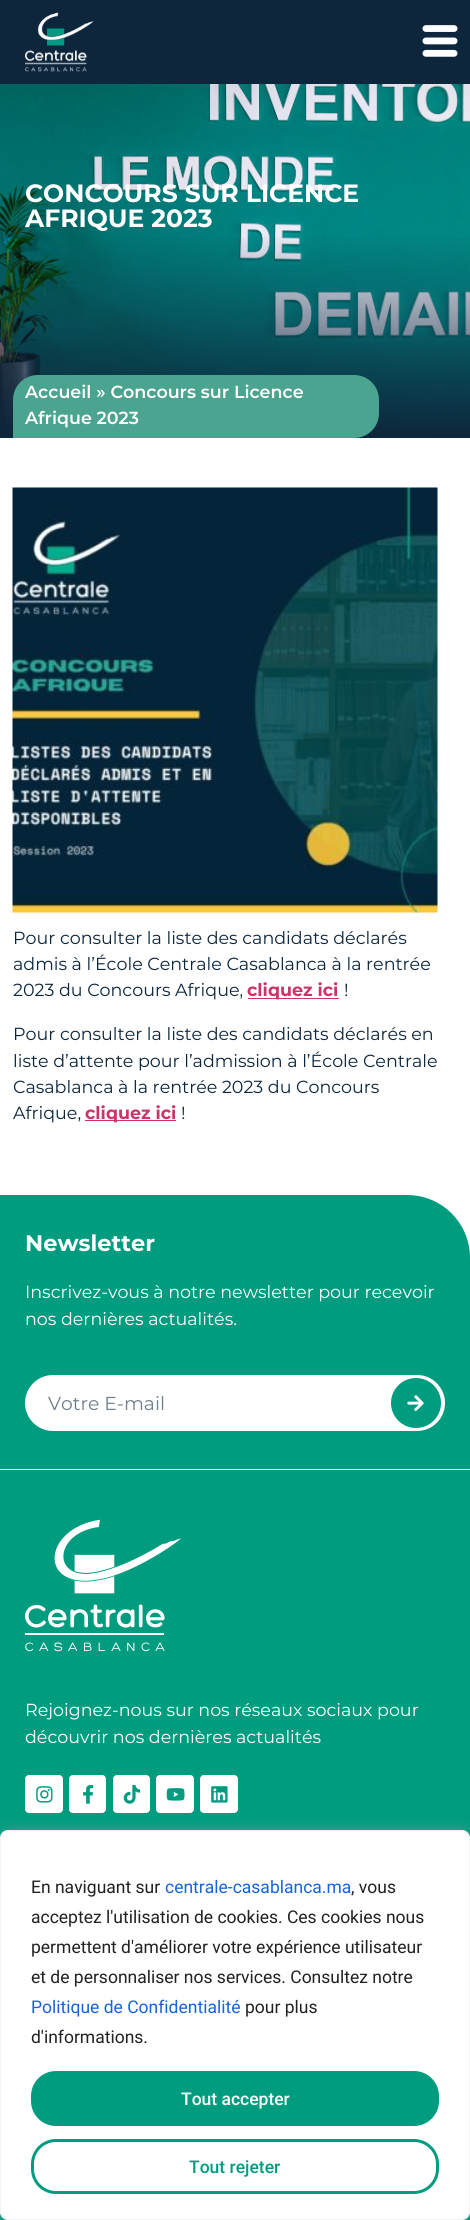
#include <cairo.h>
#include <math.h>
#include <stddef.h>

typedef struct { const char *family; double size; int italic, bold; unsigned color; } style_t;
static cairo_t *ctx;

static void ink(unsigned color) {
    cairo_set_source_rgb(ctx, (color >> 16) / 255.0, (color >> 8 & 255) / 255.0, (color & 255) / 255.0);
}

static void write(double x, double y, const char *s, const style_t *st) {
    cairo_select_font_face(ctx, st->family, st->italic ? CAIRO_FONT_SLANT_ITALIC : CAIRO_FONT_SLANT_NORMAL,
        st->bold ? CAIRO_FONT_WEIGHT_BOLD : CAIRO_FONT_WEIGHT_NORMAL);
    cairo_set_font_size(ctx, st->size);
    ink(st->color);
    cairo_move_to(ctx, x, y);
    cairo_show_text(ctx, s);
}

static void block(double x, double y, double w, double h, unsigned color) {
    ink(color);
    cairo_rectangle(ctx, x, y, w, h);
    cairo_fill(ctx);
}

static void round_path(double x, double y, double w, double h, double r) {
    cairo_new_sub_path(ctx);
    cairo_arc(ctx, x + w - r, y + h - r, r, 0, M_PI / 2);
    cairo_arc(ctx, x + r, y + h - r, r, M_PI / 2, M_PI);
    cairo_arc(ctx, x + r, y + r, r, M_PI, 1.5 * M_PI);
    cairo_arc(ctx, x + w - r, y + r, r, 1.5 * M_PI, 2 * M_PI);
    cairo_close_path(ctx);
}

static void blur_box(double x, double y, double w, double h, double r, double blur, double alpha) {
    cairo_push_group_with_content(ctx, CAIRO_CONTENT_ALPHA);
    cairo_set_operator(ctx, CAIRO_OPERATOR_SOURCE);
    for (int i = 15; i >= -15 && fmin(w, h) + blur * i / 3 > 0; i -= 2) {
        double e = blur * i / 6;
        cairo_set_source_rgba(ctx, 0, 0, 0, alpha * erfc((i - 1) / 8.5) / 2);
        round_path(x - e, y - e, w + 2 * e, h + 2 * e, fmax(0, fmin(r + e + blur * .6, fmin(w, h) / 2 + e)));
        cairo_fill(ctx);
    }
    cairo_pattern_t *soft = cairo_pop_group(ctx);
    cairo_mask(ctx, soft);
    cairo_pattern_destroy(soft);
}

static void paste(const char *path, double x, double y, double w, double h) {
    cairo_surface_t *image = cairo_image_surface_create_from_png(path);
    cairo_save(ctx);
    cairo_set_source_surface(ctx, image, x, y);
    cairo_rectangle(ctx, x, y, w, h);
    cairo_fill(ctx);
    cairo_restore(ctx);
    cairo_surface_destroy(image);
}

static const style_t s1 = {"Montserrat", 25, 0, 1, 0xffffff};
static const style_t s2 = {"Montserrat SemiBold", 17.5, 0, 0, 0xffffff};
static const style_t s3 = {"Montserrat", 17.5, 0, 0, 0x0d263c};
static const style_t s4 = {"Montserrat", 17.5, 0, 1, 0xcc3366};
static const style_t s5 = {"Montserrat", 22.5, 0, 1, 0xffffff};
static const style_t s6 = {"Montserrat", 17.5, 0, 0, 0xffffff};
static const style_t s7 = {"Montserrat", 18.75, 0, 0, 0x6e7d8a};
static const style_t s8 = {"Roboto", 17.5, 0, 0, 0x212121};
static const style_t s9 = {"Roboto", 17.5, 0, 0, 0x1863dc};
static const style_t s10 = {"Roboto Medium", 17.5, 0, 0, 0xffffff};
static const style_t s11 = {"Roboto Medium", 17.5, 0, 0, 0x009c7f};

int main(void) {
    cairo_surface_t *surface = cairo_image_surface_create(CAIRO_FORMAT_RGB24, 470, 2220);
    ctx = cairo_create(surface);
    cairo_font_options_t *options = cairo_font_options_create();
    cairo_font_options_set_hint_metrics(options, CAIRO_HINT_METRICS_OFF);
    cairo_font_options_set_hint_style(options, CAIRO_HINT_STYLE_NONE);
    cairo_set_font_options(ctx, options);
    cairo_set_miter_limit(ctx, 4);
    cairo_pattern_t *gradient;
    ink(0xffffff);
    cairo_paint(ctx);
    block(0, 0, 470, 84, 0x0d263c);
    paste("pic1.png", 25, 12, 69, 60);
    paste("pic2.png", 422, 25, 36, 32);
    paste("pic3.png", 0, 84, 470, 353);
    write(25, 202, "CONCOURS SUR LICENCE", &s1);
    write(25, 227, "AFRIQUE 2023", &s1);
    gradient = cairo_pattern_create_linear(235, 0, 235, 438);
    cairo_pattern_add_color_stop_rgba(gradient, 0.53, 0.051, 0.149, 0.235, 0);
    cairo_pattern_add_color_stop_rgba(gradient, 1, 0.051, 0.149, 0.235, 1);
    cairo_set_source(ctx, gradient);
    cairo_pattern_destroy(gradient);
    cairo_rectangle(ctx, 0, 237, 470, 201);
    cairo_fill(ctx);
    ink(0x4aa48f);
    cairo_new_path(ctx);
    cairo_move_to(ctx, 38, 375);
    cairo_line_to(ctx, 354, 375);
    cairo_curve_to(ctx, 368, 375, 379, 386, 379, 400);
    cairo_line_to(ctx, 379, 413);
    cairo_curve_to(ctx, 379, 427, 368, 438, 354, 438);
    cairo_line_to(ctx, 13, 438);
    cairo_line_to(ctx, 13, 400);
    cairo_curve_to(ctx, 13, 386, 24, 375, 38, 375);
    cairo_close_path(ctx);
    cairo_fill(ctx);
    write(25, 398, "Accueil » Concours sur Licence", &s2);
    write(25, 424, "Afrique 2023", &s2);
    paste("pic4.png", 12, 487, 426, 426);
    write(13, 944, "Pour consulter la liste des candidats déclarés", &s3);
    write(13, 970, "admis à l’École Centrale Casablanca à la rentrée", &s3);
    write(13, 996, "2023 du Concours Afrique,", &s3);
    block(248, 998, 91, 1, 0xcc3366);
    write(247, 996, "cliquez ici", &s4);
    write(344, 996, "!", &s3);
    write(13, 1040, "Pour consulter la liste des candidats déclarés en", &s3);
    write(13, 1067, "liste d’attente pour l’admission à l’École Centrale", &s3);
    write(13, 1093, "Casablanca à la rentrée 2023 du Concours", &s3);
    write(13, 1119, "Afrique,", &s3);
    block(85, 1120, 91, 1, 0xcc3366);
    write(85, 1119, "cliquez ici", &s4);
    write(181, 1119, "!", &s3);
    ink(0x009c7f);
    cairo_new_path(ctx);
    cairo_move_to(ctx, 0, 1195);
    cairo_line_to(ctx, 407, 1195);
    cairo_curve_to(ctx, 442, 1195, 470, 1223, 470, 1258);
    cairo_line_to(ctx, 470, 1469);
    cairo_line_to(ctx, 0, 1469);
    cairo_close_path(ctx);
    cairo_fill(ctx);
    write(25, 1251, "Newsletter", &s5);
    write(25, 1298, "Inscrivez-vous à notre newsletter pour recevoir", &s6);
    write(25, 1325, "nos dernières actualités.", &s6);
    round_path(25, 1375, 420, 56, 28);
    cairo_fill(ctx);
    write(48, 1410, "Votre E-mail", &s7);
    ink(0x009c7f);
    cairo_new_path(ctx);
    cairo_arc(ctx, 416, 1403, 25, 0, 2 * M_PI);
    cairo_fill(ctx);
    paste("pic5.png", 407, 1395, 17, 17);
    block(0, 1470, 470, 750, 0x009c7f);
    paste("pic6.png", 25, 1519, 156, 133);
    write(25, 1716, "Rejoignez-nous sur nos réseaux sociaux pour", &s6);
    write(25, 1743, "découvrir nos dernières actualités", &s6);
    round_path(25, 1775, 38, 38, 4);
    cairo_fill(ctx);
    paste("pic7.png", 36, 1786, 17, 17);
    round_path(69, 1775, 37, 38, 4);
    cairo_fill(ctx);
    paste("pic8.png", 83, 1785, 11, 19);
    round_path(113, 1775, 37, 38, 4);
    cairo_fill(ctx);
    paste("pic9.png", 123, 1785, 18, 19);
    round_path(156, 1775, 38, 38, 4);
    cairo_fill(ctx);
    paste("pic10.png", 166, 1788, 19, 13);
    round_path(200, 1775, 38, 38, 4);
    cairo_fill(ctx);
    paste("pic11.png", 211, 1786, 17, 17);
    ink(0xacabab);
    blur_box(0, 1829, 470, 390, 8, 6, 0.3);
    ink(0xffffff);
    round_path(0.5, 1830.5, 469, 389, 7.5);
    cairo_fill_preserve(ctx);
    ink(0xf4f4f4);
    cairo_set_line_width(ctx, 1);
    cairo_stroke(ctx);
    write(31, 1893, "En naviguant sur", &s8);
    write(165, 1893, "centrale-casablanca.ma", &s9);
    write(351, 1893, ", vous", &s8);
    write(31, 1923, "acceptez l'utilisation de cookies. Ces cookies nous", &s8);
    write(31, 1953, "permettent d'améliorer votre expérience utilisateur", &s8);
    write(31, 1983, "et de personnaliser nos services. Consultez notre", &s8);
    write(31, 2013, "Politique de Confidentialité", &s9);
    write(245, 2013, "pour plus", &s8);
    write(31, 2043, "d'informations.", &s8);
    ink(0x009c7f);
    round_path(32.5, 2072.5, 405, 52, 23.5);
    cairo_fill_preserve(ctx);
    cairo_set_line_width(ctx, 3);
    cairo_stroke(ctx);
    write(181, 2105, "Tout accepter", &s10);
    round_path(32.5, 2140.5, 405, 52, 23.5);
    ink(0x009c7f);
    cairo_stroke(ctx);
    write(189, 2173, "Tout rejeter", &s11);
    cairo_surface_write_to_png(surface, "screenshot.png");
    cairo_font_options_destroy(options);
    cairo_destroy(ctx);
    cairo_surface_destroy(surface);
    return 0;
}
